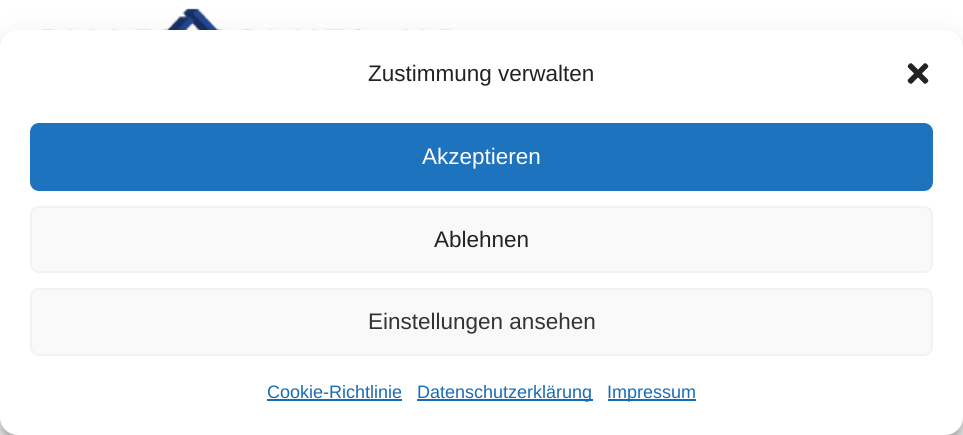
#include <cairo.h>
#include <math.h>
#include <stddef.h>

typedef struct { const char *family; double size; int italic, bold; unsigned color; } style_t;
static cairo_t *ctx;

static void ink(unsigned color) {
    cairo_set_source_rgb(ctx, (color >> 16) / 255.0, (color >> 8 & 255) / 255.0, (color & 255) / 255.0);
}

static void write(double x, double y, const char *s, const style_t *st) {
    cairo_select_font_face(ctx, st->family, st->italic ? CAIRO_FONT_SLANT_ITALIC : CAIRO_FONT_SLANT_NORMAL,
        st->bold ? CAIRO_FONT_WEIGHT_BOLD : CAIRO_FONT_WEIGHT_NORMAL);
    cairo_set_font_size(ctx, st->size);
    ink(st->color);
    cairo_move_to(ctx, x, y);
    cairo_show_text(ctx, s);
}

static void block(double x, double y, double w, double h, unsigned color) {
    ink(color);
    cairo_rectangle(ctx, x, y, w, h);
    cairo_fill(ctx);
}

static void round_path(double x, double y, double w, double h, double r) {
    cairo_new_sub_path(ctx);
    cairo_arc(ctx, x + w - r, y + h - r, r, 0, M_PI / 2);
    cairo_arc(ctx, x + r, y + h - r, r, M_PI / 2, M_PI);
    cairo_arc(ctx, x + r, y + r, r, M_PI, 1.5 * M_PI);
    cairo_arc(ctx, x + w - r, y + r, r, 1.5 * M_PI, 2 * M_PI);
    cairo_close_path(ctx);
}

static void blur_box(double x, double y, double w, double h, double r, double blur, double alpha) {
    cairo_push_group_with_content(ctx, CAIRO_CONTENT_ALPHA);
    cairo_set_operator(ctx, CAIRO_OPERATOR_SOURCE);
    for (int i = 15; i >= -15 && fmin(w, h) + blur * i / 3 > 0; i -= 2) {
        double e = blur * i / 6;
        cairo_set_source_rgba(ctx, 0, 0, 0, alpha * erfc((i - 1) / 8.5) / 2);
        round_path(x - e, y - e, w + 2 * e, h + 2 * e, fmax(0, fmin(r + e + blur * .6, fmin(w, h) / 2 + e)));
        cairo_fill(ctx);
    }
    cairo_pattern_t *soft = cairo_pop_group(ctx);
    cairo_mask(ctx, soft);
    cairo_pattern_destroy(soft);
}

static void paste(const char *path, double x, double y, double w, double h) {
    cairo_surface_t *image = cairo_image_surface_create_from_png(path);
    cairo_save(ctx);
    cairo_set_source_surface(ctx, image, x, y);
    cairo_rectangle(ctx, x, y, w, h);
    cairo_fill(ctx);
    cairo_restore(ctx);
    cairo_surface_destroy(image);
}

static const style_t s1 = {"Liberation Sans", 22.5, 0, 0, 0x222222};
static const style_t s2 = {"Liberation Sans", 22.5, 0, 0, 0xffffff};
static const style_t s3 = {"Liberation Sans", 22.5, 0, 0, 0x333333};
static const style_t s4 = {"Liberation Sans", 18, 0, 0, 0x166cb5};

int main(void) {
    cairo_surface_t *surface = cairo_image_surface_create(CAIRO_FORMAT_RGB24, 963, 435);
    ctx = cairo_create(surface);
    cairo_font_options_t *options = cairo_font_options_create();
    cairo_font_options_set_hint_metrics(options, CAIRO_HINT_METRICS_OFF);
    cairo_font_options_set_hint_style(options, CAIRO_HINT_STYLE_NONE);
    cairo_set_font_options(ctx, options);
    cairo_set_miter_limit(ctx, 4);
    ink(0xffffff);
    cairo_paint(ctx);
    paste("pic1.png", 37, 8, 420, 22);
    ink(0x000000);
    blur_box(0, 39, 963, 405, 18, 4.5, 0.23);
    blur_box(0, 45, 963, 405, 18, 15, 0.19);
    ink(0xffffff);
    round_path(0, 30, 963, 405, 18);
    cairo_fill(ctx);
    write(368, 81, "Zustimmung verwalten", &s1);
    paste("pic2.png", 907, 63, 22, 21);
    ink(0x1e73be);
    round_path(31, 124, 901, 66, 8);
    cairo_fill_preserve(ctx);
    cairo_stroke(ctx);
    write(422, 164, "Akzeptieren", &s2);
    ink(0xf9f9f9);
    round_path(31, 207, 901, 65, 8);
    cairo_fill_preserve(ctx);
    ink(0xf2f2f2);
    cairo_stroke(ctx);
    write(434, 247, "Ablehnen", &s1);
    ink(0xf9f9f9);
    round_path(31, 289, 901, 66, 8);
    cairo_fill_preserve(ctx);
    ink(0xf2f2f2);
    cairo_stroke(ctx);
    write(368, 329, "Einstellungen ansehen", &s3);
    write(267, 398, "Cookie-Richtlinie", &s4);
    block(267, 399, 135, 2, 0x166cb5);
    block(417, 399, 176, 2, 0x166cb5);
    write(417, 398, "Datenschutzerklärung", &s4);
    block(608, 399, 88, 2, 0x166cb5);
    write(607, 398, "Impressum", &s4);
    cairo_surface_write_to_png(surface, "screenshot.png");
    cairo_font_options_destroy(options);
    cairo_destroy(ctx);
    cairo_surface_destroy(surface);
    return 0;
}
